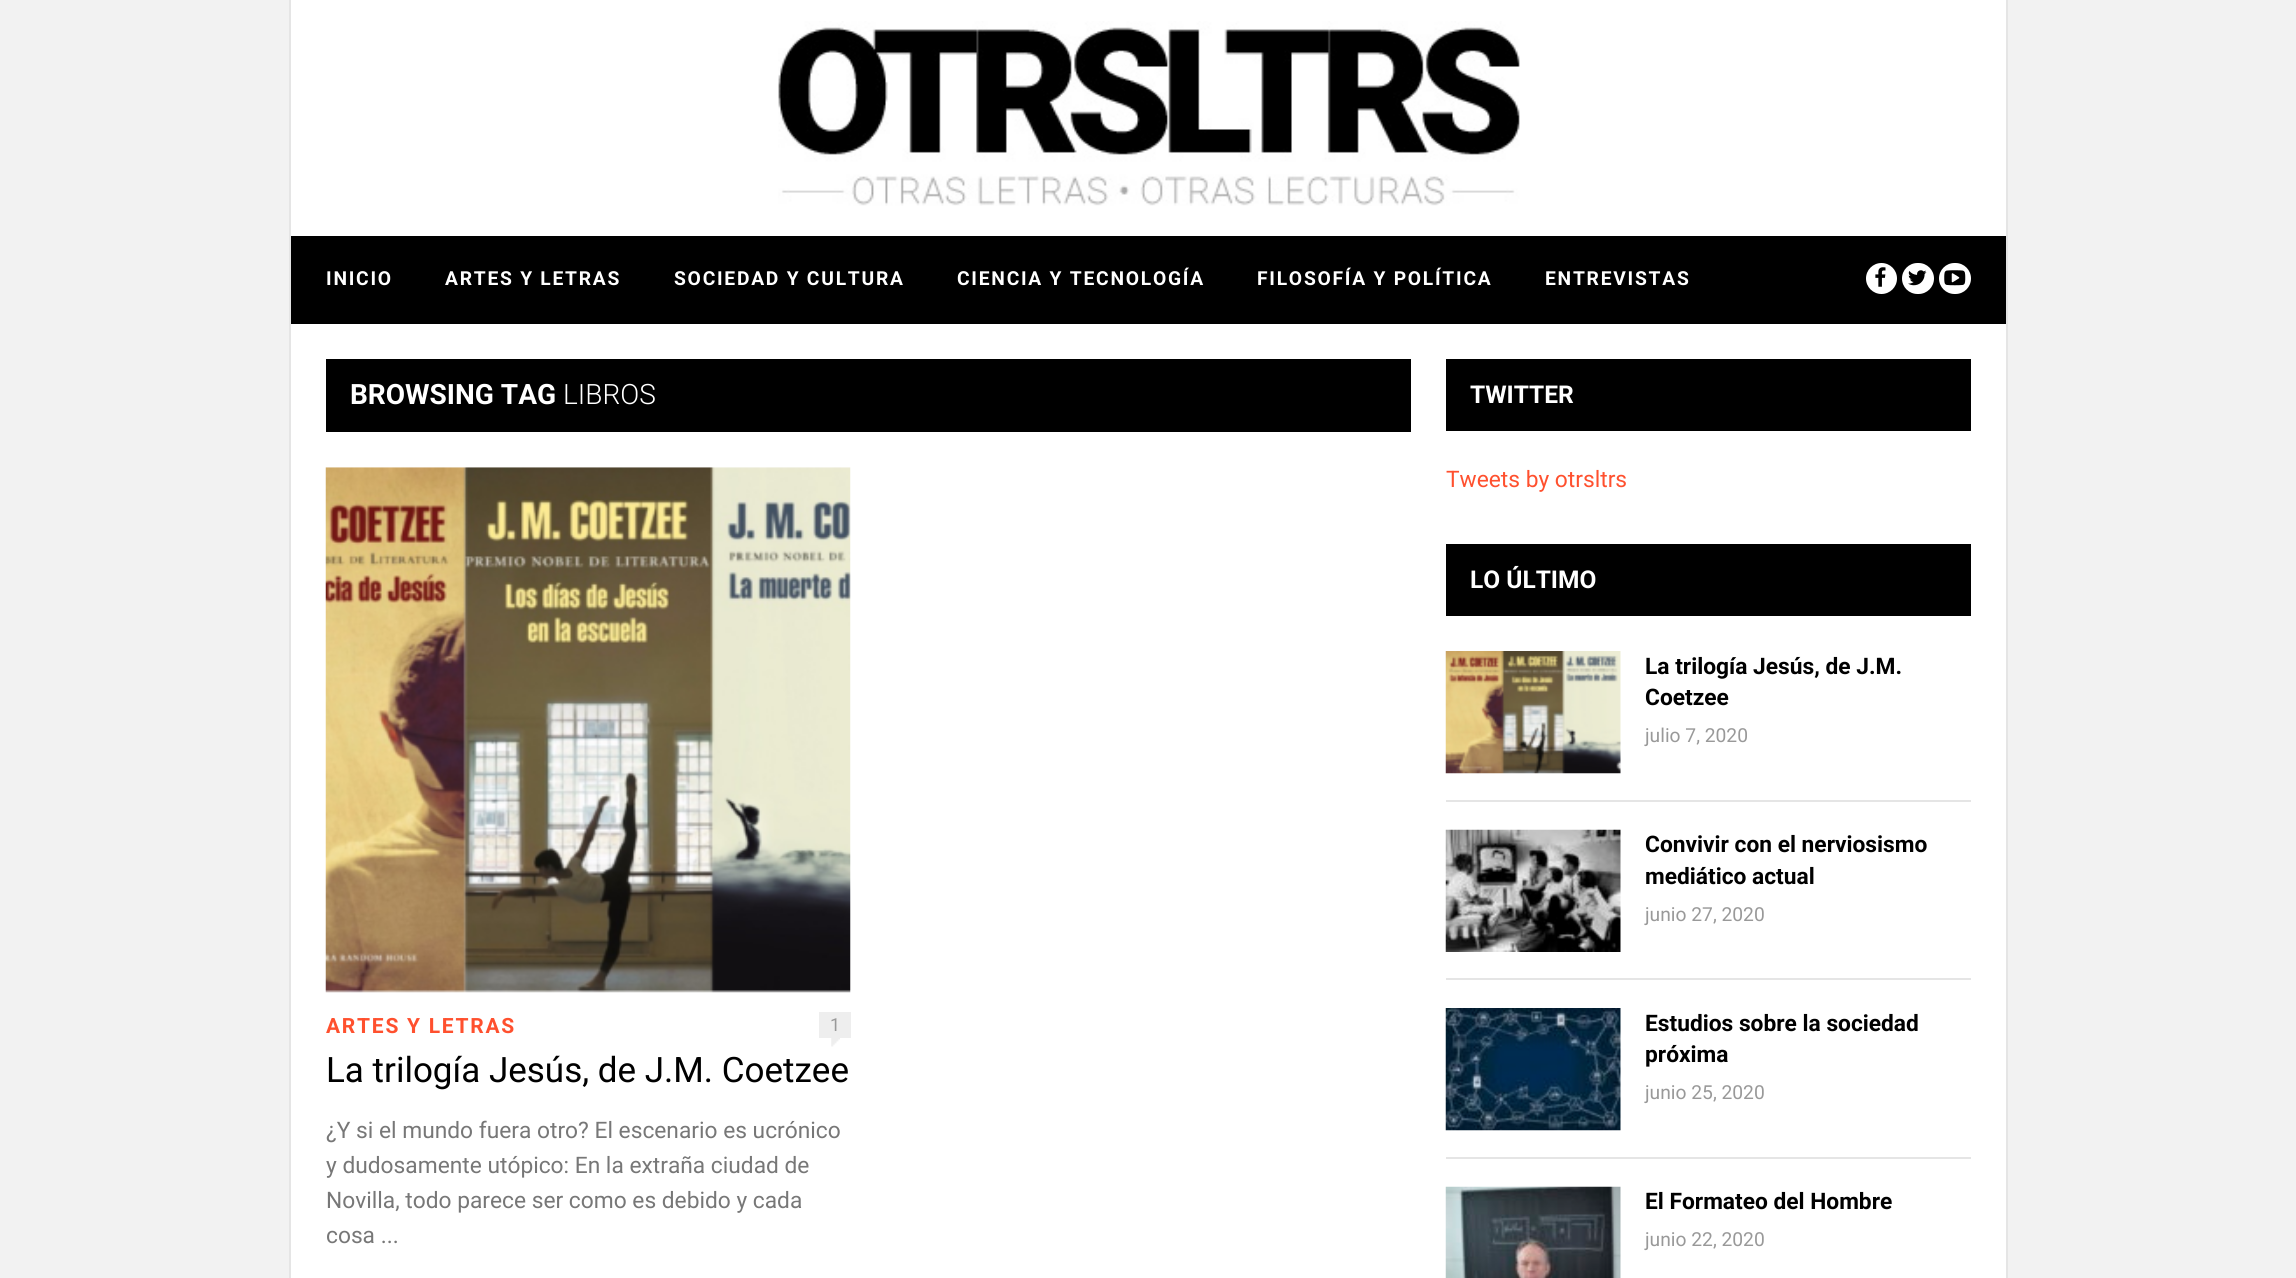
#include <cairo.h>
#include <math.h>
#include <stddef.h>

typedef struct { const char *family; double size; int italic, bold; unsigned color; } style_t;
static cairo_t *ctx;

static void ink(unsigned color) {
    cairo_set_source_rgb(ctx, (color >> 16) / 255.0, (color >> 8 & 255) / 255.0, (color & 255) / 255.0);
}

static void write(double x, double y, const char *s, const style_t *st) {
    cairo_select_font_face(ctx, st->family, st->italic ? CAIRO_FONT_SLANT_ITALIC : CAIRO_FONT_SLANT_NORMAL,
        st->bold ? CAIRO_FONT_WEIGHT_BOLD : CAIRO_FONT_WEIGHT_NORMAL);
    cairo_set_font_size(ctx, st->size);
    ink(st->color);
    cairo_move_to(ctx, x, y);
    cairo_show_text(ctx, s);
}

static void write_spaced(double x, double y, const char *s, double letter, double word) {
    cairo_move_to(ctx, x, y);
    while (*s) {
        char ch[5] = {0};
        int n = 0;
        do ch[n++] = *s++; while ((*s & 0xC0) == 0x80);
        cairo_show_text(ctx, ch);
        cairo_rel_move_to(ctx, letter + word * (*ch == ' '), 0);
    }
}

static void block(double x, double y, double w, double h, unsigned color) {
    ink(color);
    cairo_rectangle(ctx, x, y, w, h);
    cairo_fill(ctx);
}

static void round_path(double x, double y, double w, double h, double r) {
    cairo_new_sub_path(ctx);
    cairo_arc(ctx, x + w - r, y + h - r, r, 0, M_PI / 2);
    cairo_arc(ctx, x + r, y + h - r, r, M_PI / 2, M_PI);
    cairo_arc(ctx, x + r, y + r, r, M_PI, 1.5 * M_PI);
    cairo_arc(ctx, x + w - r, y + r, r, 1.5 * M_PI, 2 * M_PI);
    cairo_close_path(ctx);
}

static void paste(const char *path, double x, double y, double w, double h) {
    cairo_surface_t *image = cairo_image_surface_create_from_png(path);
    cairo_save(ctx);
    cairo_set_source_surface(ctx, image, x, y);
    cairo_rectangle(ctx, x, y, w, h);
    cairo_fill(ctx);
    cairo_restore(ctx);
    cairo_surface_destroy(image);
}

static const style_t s1 = {"Roboto", 28, 0, 1, 0xffffff};
static const style_t s2 = {"Roboto Light", 28, 0, 0, 0xffffff};
static const style_t s3 = {"Roboto", 18, 0, 0, 0x999999};
static const style_t s4 = {"Roboto", 35, 0, 0, 0x000000};
static const style_t s5 = {"Roboto", 22.75, 0, 0, 0x777777};
static const style_t s6 = {"Roboto", 24.5, 0, 1, 0xffffff};
static const style_t s7 = {"Roboto", 22.75, 0, 0, 0xff502e};
static const style_t s8 = {"Roboto", 22.75, 0, 1, 0x000000};
static const style_t s9 = {"Roboto", 19.25, 0, 0, 0x999999};

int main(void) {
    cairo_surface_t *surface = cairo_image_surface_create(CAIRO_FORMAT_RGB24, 2296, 1278);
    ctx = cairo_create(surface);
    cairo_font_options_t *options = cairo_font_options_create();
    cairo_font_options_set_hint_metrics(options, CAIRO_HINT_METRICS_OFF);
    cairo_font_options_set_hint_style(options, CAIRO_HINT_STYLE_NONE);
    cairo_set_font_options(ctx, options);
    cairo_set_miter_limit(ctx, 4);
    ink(0xf2f2f2);
    cairo_paint(ctx);
    block(291, 0, 1715, 1278, 0xffffff);
    block(2006, 0, 2, 1278, 0xe5e5e5);
    block(289, 0, 2, 1278, 0xe5e5e5);
    paste("pic1.png", 778, 21, 742, 185);
    block(291, 236, 1715, 88, 0x000000);
    cairo_select_font_face(ctx, "Roboto", CAIRO_FONT_SLANT_NORMAL, CAIRO_FONT_WEIGHT_BOLD);
    cairo_set_font_size(ctx, 19.25);
    ink(0xffffff);
    write_spaced(326, 285, "INICIO", 1.75, 0);
    write_spaced(445, 285, "ARTES Y LETRAS", 1.75, 0);
    write_spaced(674, 285, "SOCIEDAD Y CULTURA", 1.75, 0);
    write_spaced(957, 285, "CIENCIA Y TECNOLOGÍA", 1.75, 0);
    write_spaced(1257, 285, "FILOSOFÍA Y POLÍTICA", 1.75, 0);
    write_spaced(1545, 285, "ENTREVISTAS", 1.75, 0);
    cairo_new_path(ctx);
    cairo_arc(ctx, 1881.5, 278.5, 15.5, 0, 2 * M_PI);
    cairo_fill(ctx);
    paste("pic2.png", 1875, 267, 11, 20);
    round_path(1902, 263, 32, 31, 15.5);
    cairo_fill(ctx);
    paste("pic3.png", 1908, 270, 19, 16);
    round_path(1939, 263, 32, 31, 15.5);
    cairo_fill(ctx);
    paste("pic4.png", 1944, 270, 22, 16);
    block(326, 359, 1085, 73, 0x000000);
    write(350, 404, "BROWSING TAG", &s1);
    write(563, 404, "LIBROS", &s2);
    paste("pic5.png", 325, 467, 526, 526);
    cairo_select_font_face(ctx, "Roboto", CAIRO_FONT_SLANT_NORMAL, CAIRO_FONT_WEIGHT_BOLD);
    cairo_set_font_size(ctx, 21);
    ink(0xff502e);
    write_spaced(326, 1033, "ARTES Y LETRAS", 1.75, 0);
    paste("pic6.png", 831, 1038, 9, 9);
    block(819, 1012, 32, 26, 0xeeeeee);
    write(830, 1031, "1", &s3);
    write(326, 1082, "La trilogía Jesús, de J.M. Coetzee", &s4);
    write(326, 1138, "¿Y si el mundo fuera otro? El escenario es ucrónico", &s5);
    write(326, 1173, "y dudosamente utópico: En la extraña ciudad de", &s5);
    write(326, 1208, "Novilla, todo parece ser como es debido y cada", &s5);
    write(326, 1243, "cosa ...", &s5);
    block(1446, 359, 525, 72, 0x000000);
    write(1470, 403, "TWITTER", &s6);
    write(1446, 487, "Tweets by otrsltrs", &s7);
    block(1446, 544, 525, 72, 0x000000);
    write(1470, 588, "LO ÚLTIMO", &s6);
    block(1446, 800, 525, 2, 0xe5e5e5);
    paste("pic7.png", 1445, 651, 176, 123);
    write(1645, 674, "La trilogía Jesús, de J.M.", &s8);
    write(1645, 705, "Coetzee", &s8);
    write(1645, 742, "julio 7, 2020", &s9);
    block(1446, 978, 525, 2, 0xe5e5e5);
    paste("pic8.png", 1445, 829, 176, 123);
    write(1645, 852, "Convivir con el nerviosismo", &s8);
    write(1645, 884, "mediático actual", &s8);
    write(1645, 921, "junio 27, 2020", &s9);
    block(1446, 1157, 525, 2, 0xe5e5e5);
    paste("pic9.png", 1445, 1008, 176, 123);
    write(1645, 1031, "Estudios sobre la sociedad", &s8);
    write(1645, 1062, "próxima", &s8);
    write(1645, 1099, "junio 25, 2020", &s9);
    paste("pic10.png", 1445, 1186, 176, 92);
    write(1645, 1209, "El Formateo del Hombre", &s8);
    write(1645, 1246, "junio 22, 2020", &s9);
    cairo_surface_write_to_png(surface, "screenshot.png");
    cairo_font_options_destroy(options);
    cairo_destroy(ctx);
    cairo_surface_destroy(surface);
    return 0;
}
